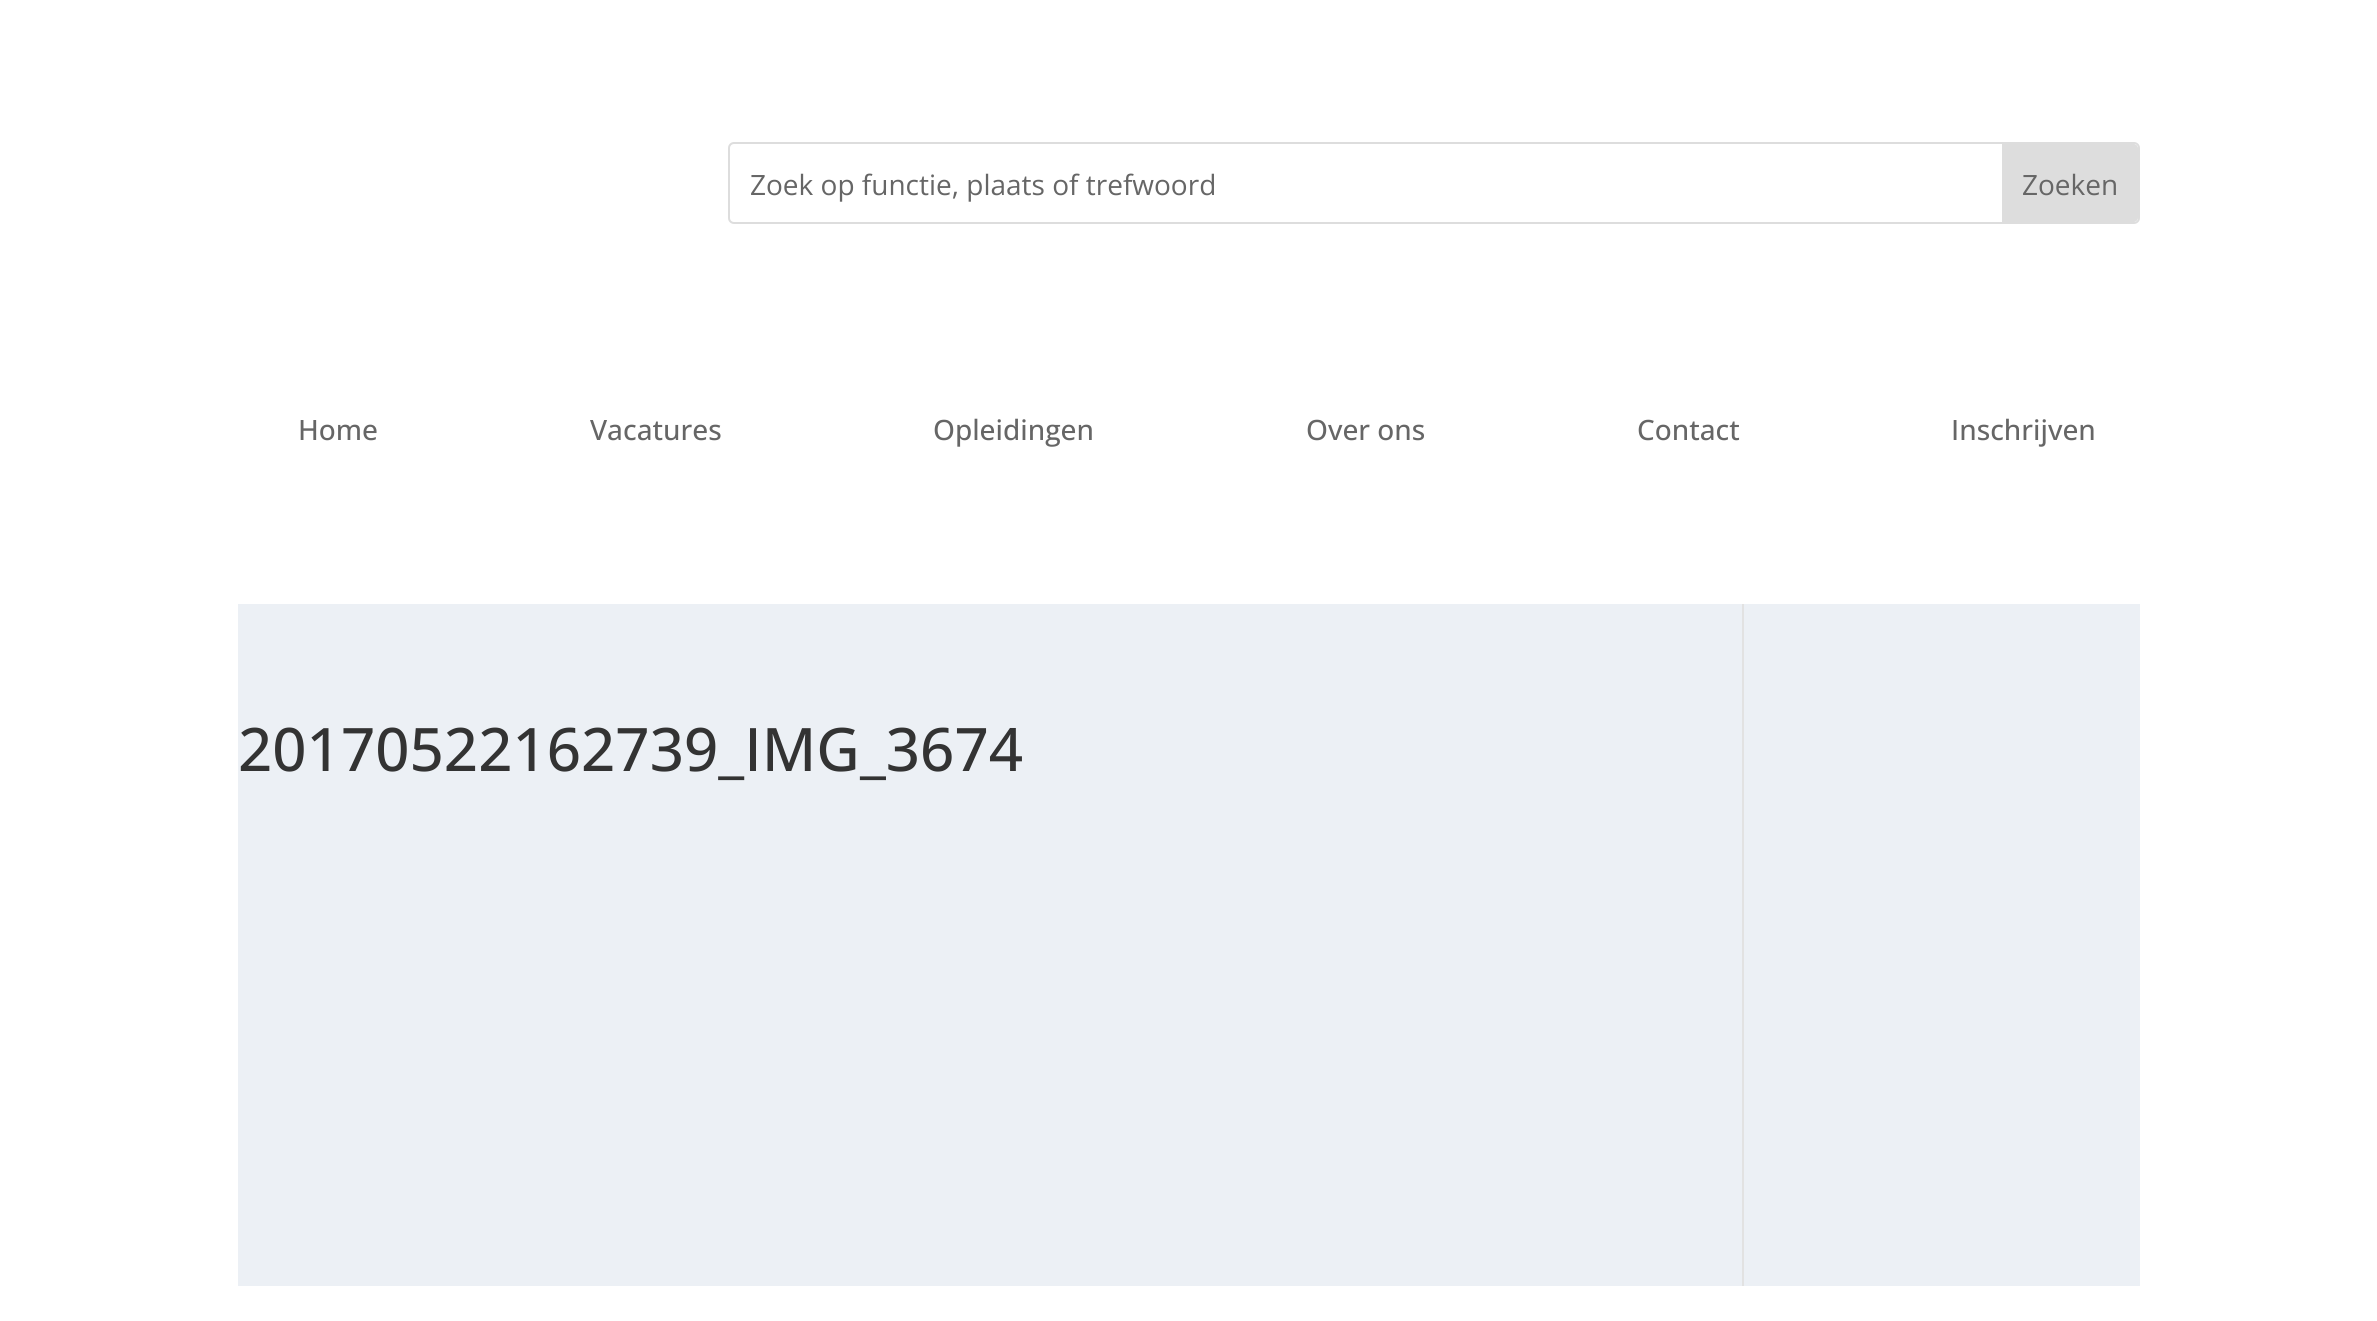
#include <cairo.h>
#include <math.h>
#include <stddef.h>

typedef struct { const char *family; double size; int italic, bold; unsigned color; } style_t;
static cairo_t *ctx;

static void ink(unsigned color) {
    cairo_set_source_rgb(ctx, (color >> 16) / 255.0, (color >> 8 & 255) / 255.0, (color & 255) / 255.0);
}

static void write(double x, double y, const char *s, const style_t *st) {
    cairo_select_font_face(ctx, st->family, st->italic ? CAIRO_FONT_SLANT_ITALIC : CAIRO_FONT_SLANT_NORMAL,
        st->bold ? CAIRO_FONT_WEIGHT_BOLD : CAIRO_FONT_WEIGHT_NORMAL);
    cairo_set_font_size(ctx, st->size);
    ink(st->color);
    cairo_move_to(ctx, x, y);
    cairo_show_text(ctx, s);
}

static void block(double x, double y, double w, double h, unsigned color) {
    ink(color);
    cairo_rectangle(ctx, x, y, w, h);
    cairo_fill(ctx);
}

static void round_path(double x, double y, double w, double h, double r) {
    cairo_new_sub_path(ctx);
    cairo_arc(ctx, x + w - r, y + h - r, r, 0, M_PI / 2);
    cairo_arc(ctx, x + r, y + h - r, r, M_PI / 2, M_PI);
    cairo_arc(ctx, x + r, y + r, r, M_PI, 1.5 * M_PI);
    cairo_arc(ctx, x + w - r, y + r, r, 1.5 * M_PI, 2 * M_PI);
    cairo_close_path(ctx);
}

static const style_t s1 = {"Open Sans", 28, 0, 0, 0x666666};
static const style_t s2 = {"Open Sans Medium", 28, 0, 0, 0x666666};
static const style_t s3 = {"Open Sans Medium", 60, 0, 0, 0x333333};

int main(void) {
    cairo_surface_t *surface = cairo_image_surface_create(CAIRO_FORMAT_RGB24, 2377, 1321);
    ctx = cairo_create(surface);
    cairo_font_options_t *options = cairo_font_options_create();
    cairo_font_options_set_hint_metrics(options, CAIRO_HINT_METRICS_OFF);
    cairo_font_options_set_hint_style(options, CAIRO_HINT_STYLE_NONE);
    cairo_set_font_options(ctx, options);
    cairo_set_miter_limit(ctx, 4);
    ink(0xffffff);
    cairo_paint(ctx);
    round_path(729, 143, 1410, 80, 5);
    ink(0xdddddd);
    cairo_stroke(ctx);
    write(750, 195, "Zoek op functie, plaats of trefwoord", &s1);
    ink(0xdddddd);
    cairo_new_path(ctx);
    cairo_move_to(ctx, 2002, 144);
    cairo_line_to(ctx, 2134, 144);
    cairo_curve_to(ctx, 2136, 144, 2138, 146, 2138, 148);
    cairo_line_to(ctx, 2138, 218);
    cairo_curve_to(ctx, 2138, 220, 2136, 222, 2134, 222);
    cairo_line_to(ctx, 2002, 222);
    cairo_close_path(ctx);
    cairo_fill(ctx);
    write(2022, 195, "Zoeken", &s1);
    write(298, 440, "Home", &s2);
    write(590, 440, "Vacatures", &s2);
    write(933, 440, "Opleidingen", &s2);
    write(1306, 440, "Over ons", &s2);
    write(1637, 440, "Contact", &s2);
    write(1951, 440, "Inschrijven", &s2);
    block(238, 604, 1902, 682, 0xecf0f5);
    write(238, 771, "20170522162739_IMG_3674", &s3);
    block(1742, 604, 2, 682, 0xe2e2e2);
    cairo_surface_write_to_png(surface, "screenshot.png");
    cairo_font_options_destroy(options);
    cairo_destroy(ctx);
    cairo_surface_destroy(surface);
    return 0;
}
